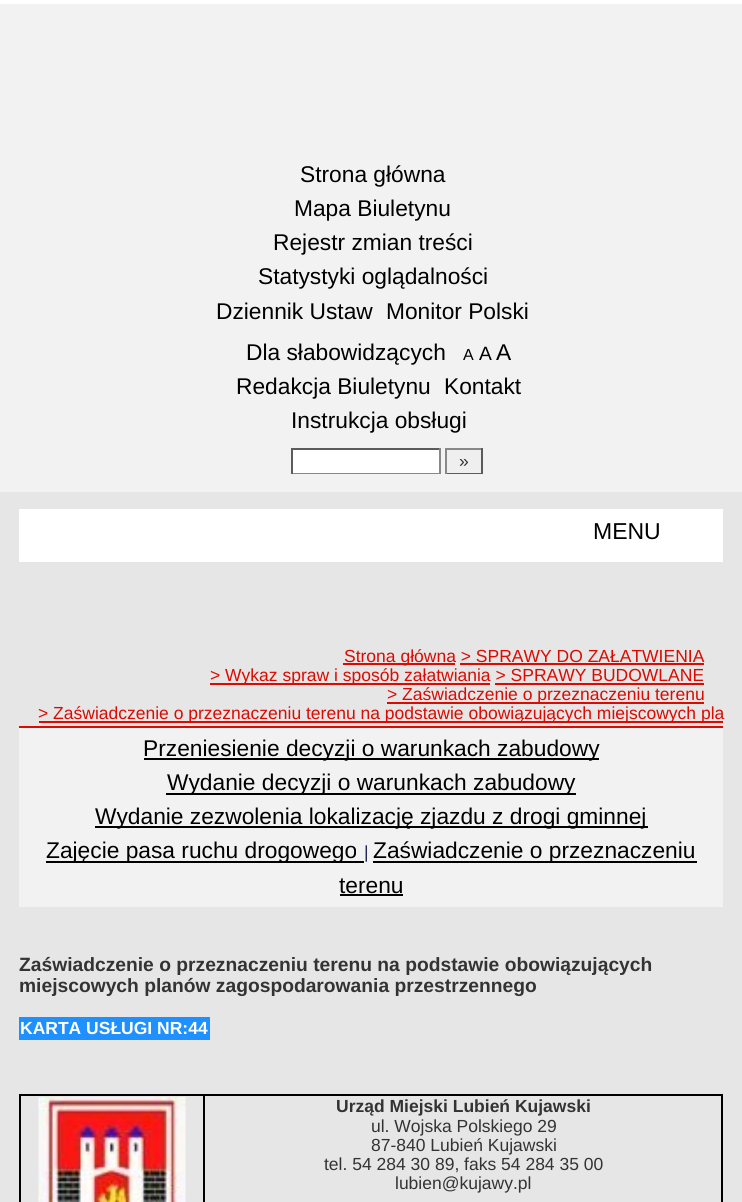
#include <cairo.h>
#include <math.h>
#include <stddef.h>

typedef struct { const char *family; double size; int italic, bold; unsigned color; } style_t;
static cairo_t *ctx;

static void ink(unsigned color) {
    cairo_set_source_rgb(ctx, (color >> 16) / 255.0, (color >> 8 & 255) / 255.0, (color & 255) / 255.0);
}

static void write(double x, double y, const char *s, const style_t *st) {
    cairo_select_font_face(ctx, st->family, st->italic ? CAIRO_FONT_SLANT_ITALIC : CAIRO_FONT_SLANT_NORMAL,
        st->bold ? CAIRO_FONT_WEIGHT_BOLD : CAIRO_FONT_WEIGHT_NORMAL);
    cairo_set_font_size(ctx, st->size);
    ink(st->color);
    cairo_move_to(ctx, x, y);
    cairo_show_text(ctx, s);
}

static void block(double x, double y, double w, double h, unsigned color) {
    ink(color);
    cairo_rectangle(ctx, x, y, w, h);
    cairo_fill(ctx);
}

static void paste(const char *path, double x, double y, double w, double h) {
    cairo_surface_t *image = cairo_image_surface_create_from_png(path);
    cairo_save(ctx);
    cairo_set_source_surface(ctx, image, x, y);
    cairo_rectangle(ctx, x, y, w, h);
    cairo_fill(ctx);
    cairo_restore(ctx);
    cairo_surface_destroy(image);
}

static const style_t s1 = {"Liberation Sans", 22.75, 0, 0, 0x000000};
static const style_t s2 = {"Liberation Sans", 16, 0, 0, 0x000000};
static const style_t s3 = {"Liberation Sans", 19.25, 0, 0, 0x000000};
static const style_t s4 = {"Liberation Sans", 17.5, 0, 0, 0x333333};
static const style_t s5 = {"Liberation Sans", 23, 0, 0, 0x000000};
static const style_t s6 = {"Liberation Sans", 17.5, 0, 0, 0xdc0a01};
static const style_t s7 = {"Liberation Sans", 17.5, 0, 0, 0x1e2557};
static const style_t s8 = {"Liberation Sans", 19.25, 0, 1, 0x333333};
static const style_t s9 = {"Liberation Sans", 17.5, 0, 1, 0xffffff};
static const style_t s10 = {"Liberation Sans", 17.5, 0, 1, 0x333333};

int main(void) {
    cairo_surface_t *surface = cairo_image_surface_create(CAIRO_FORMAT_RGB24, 742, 1202);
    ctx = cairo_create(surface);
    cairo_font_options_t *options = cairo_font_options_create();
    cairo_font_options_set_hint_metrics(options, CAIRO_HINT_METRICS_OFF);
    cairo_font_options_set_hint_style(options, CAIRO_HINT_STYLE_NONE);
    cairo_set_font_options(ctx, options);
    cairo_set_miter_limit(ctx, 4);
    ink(0xffffff);
    cairo_paint(ctx);
    block(0, 4, 742, 488, 0xf2f2f2);
    write(300, 182, "Strona główna", &s1);
    write(294, 216, "Mapa Biuletynu", &s1);
    write(273, 250, "Rejestr zmian treści", &s1);
    write(258, 284, "Statystyki oglądalności", &s1);
    write(216, 319, "Dziennik Ustaw", &s1);
    write(386, 319, "Monitor Polski", &s1);
    write(246, 360, "Dla słabowidzących", &s1);
    write(463, 360, "A", &s2);
    write(479, 360, "A", &s3);
    write(496, 360, "A", &s1);
    write(236, 394, "Redakcja Biuletynu", &s1);
    write(444, 394, "Kontakt", &s1);
    write(291, 428, "Instrukcja obsługi", &s1);
    block(293, 450, 146, 23, 0xffffff);
    block(291, 448, 150, 2, 0x5b5b5b);
    block(439, 448, 2, 26, 0x888888);
    block(291, 473, 150, 1, 0x888888);
    block(291, 448, 2, 26, 0x5b5b5b);
    block(447, 450, 34, 23, 0xefefef);
    block(445, 448, 38, 2, 0x888888);
    block(481, 448, 2, 26, 0x5b5b5b);
    block(445, 473, 38, 1, 0x5b5b5b);
    block(445, 448, 2, 26, 0x888888);
    write(459, 467, "»", &s4);
    block(0, 492, 742, 710, 0xe6e6e6);
    block(19, 509, 704, 53, 0xffffff);
    write(593, 539, "MENU", &s5);
    block(19, 726, 704, 2, 0xdc0a01);
    block(343, 663, 112, 2, 0xdc0a01);
    write(344, 662, "Strona główna > SPRAWY DO ZAŁATWIENIA", &s6);
    block(460, 663, 244, 2, 0xdc0a01);
    block(210, 683, 280, 2, 0xdc0a01);
    write(210, 681, "> Wykaz spraw i sposób załatwiania > SPRAWY BUDOWLANE", &s6);
    block(495, 683, 209, 2, 0xdc0a01);
    block(387, 702, 317, 2, 0xdc0a01);
    write(387, 700, "> Zaświadczenie o przeznaczeniu terenu", &s6);
    block(39, 721, 684, 2, 0xdc0a01);
    write(38, 719, "> Zaświadczenie o przeznaczeniu terenu na podstawie obowiązujących miejscowych pla", &s6);
    block(19, 728, 704, 179, 0xf2f2f2);
    block(144, 758, 455, 2, 0x000000);
    write(143, 756, "Przeniesienie decyzji o warunkach zabudowy", &s1);
    block(166, 793, 410, 2, 0x000000);
    write(167, 790, "Wydanie decyzji o warunkach zabudowy", &s1);
    block(95, 826, 553, 2, 0x000000);
    write(95, 824, "Wydanie zezwolenia lokalizację zjazdu z drogi gminnej", &s1);
    block(46, 861, 318, 2, 0x000000);
    write(46, 858, "Zajęcie pasa ruchu drogowego", &s1);
    write(364, 858, "|", &s7);
    block(373, 861, 324, 2, 0x000000);
    write(373, 858, "Zaświadczenie o przeznaczeniu", &s1);
    write(339, 893, "terenu", &s1);
    block(340, 894, 63, 2, 0x000000);
    write(19, 971, "Zaświadczenie o przeznaczeniu terenu na podstawie obowiązujących", &s8);
    write(19, 992, "miejscowych planów zagospodarowania przestrzennego", &s8);
    block(19, 1017, 191, 23, 0x1e90ff);
    write(20, 1034, "KARTA USŁUGI NR:44", &s9);
    block(19, 1094, 704, 2, 0x000000);
    block(721, 1094, 2, 108, 0x000000);
    block(19, 1094, 2, 108, 0x000000);
    paste("pic1.png", 38, 1097, 148, 105);
    block(203, 1094, 2, 108, 0x000000);
    write(336, 1112, "Urząd Miejski Lubień Kujawski", &s10);
    write(371, 1132, "ul. Wojska Polskiego 29", &s4);
    write(371, 1151, "87-840 Lubień Kujawski", &s4);
    write(324, 1170, "tel. 54 284 30 89, faks 54 284 35 00", &s4);
    write(395, 1189, "lubien@kujawy.pl", &s4);
    cairo_surface_write_to_png(surface, "screenshot.png");
    cairo_font_options_destroy(options);
    cairo_destroy(ctx);
    cairo_surface_destroy(surface);
    return 0;
}
